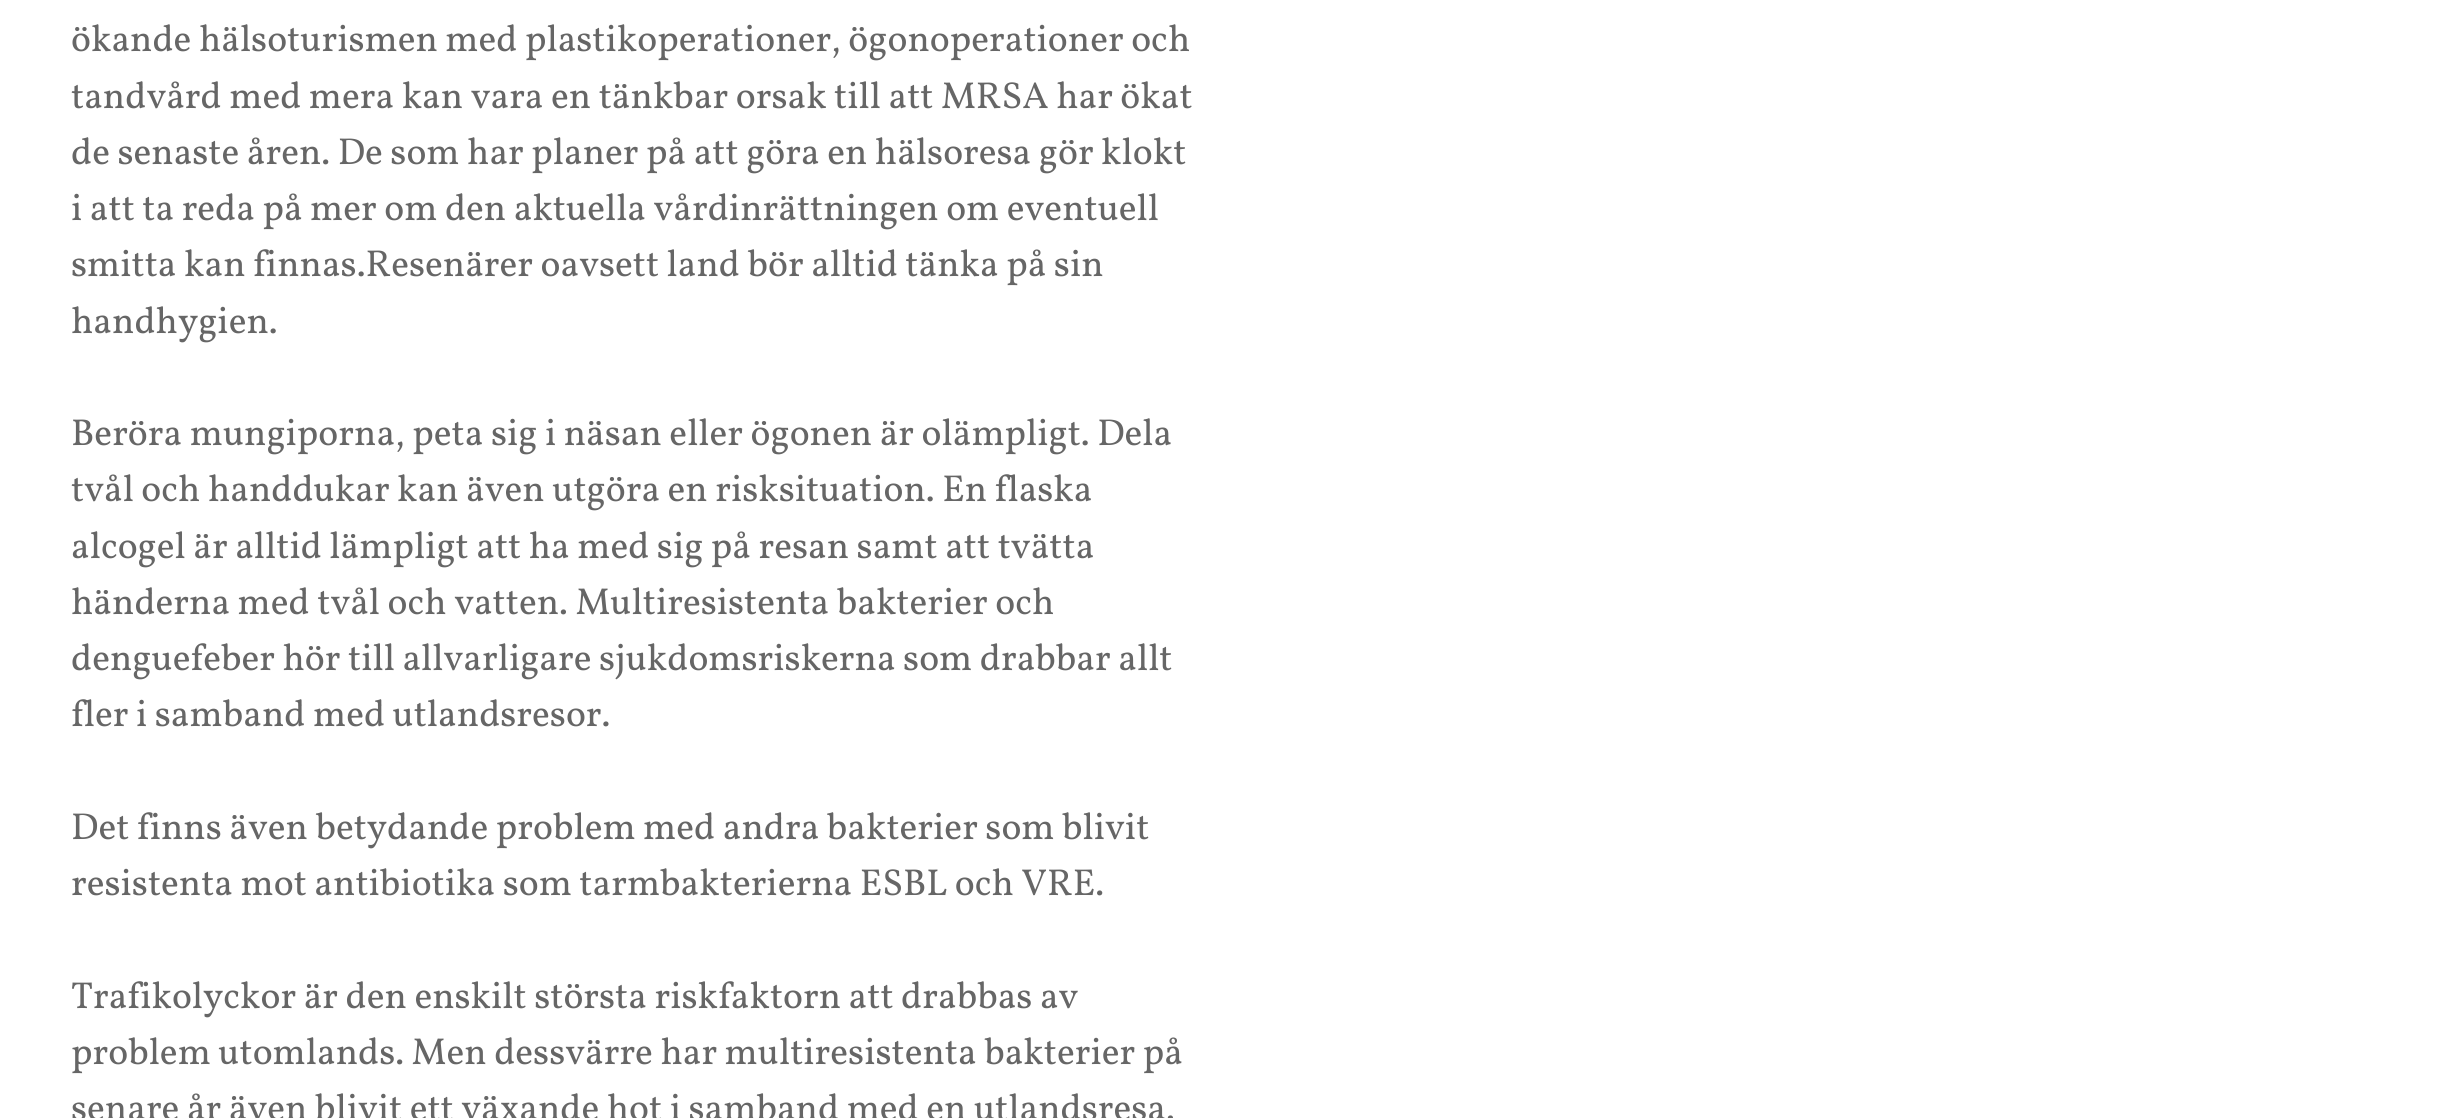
#include <cairo.h>
#include <math.h>
#include <stddef.h>

typedef struct { const char *family; double size; int italic, bold; unsigned color; } style_t;
static cairo_t *ctx;

static void ink(unsigned color) {
    cairo_set_source_rgb(ctx, (color >> 16) / 255.0, (color >> 8 & 255) / 255.0, (color & 255) / 255.0);
}

static void write(double x, double y, const char *s, const style_t *st) {
    cairo_select_font_face(ctx, st->family, st->italic ? CAIRO_FONT_SLANT_ITALIC : CAIRO_FONT_SLANT_NORMAL,
        st->bold ? CAIRO_FONT_WEIGHT_BOLD : CAIRO_FONT_WEIGHT_NORMAL);
    cairo_set_font_size(ctx, st->size);
    ink(st->color);
    cairo_move_to(ctx, x, y);
    cairo_show_text(ctx, s);
}

static const style_t s1 = {"Vollkorn", 37.5, 0, 0, 0x666666};

int main(void) {
    cairo_surface_t *surface = cairo_image_surface_create(CAIRO_FORMAT_RGB24, 2442, 1118);
    ctx = cairo_create(surface);
    cairo_font_options_t *options = cairo_font_options_create();
    cairo_font_options_set_hint_metrics(options, CAIRO_HINT_METRICS_OFF);
    cairo_font_options_set_hint_style(options, CAIRO_HINT_STYLE_NONE);
    cairo_set_font_options(ctx, options);
    cairo_set_miter_limit(ctx, 4);
    ink(0xffffff);
    cairo_paint(ctx);
    write(71, 51, "ökande hälsoturismen med plastikoperationer, ögonoperationer och", &s1);
    write(71, 108, "tandvård med mera kan vara en tänkbar orsak till att MRSA har ökat", &s1);
    write(71, 164, "de senaste åren. De som har planer på att göra en hälsoresa gör klokt", &s1);
    write(71, 220, "i att ta reda på mer om den aktuella vårdinrättningen om eventuell", &s1);
    write(71, 276, "smitta kan finnas.Resenärer oavsett land bör alltid tänka på sin", &s1);
    write(71, 333, "handhygien.", &s1);
    write(71, 445, "Beröra mungiporna, peta sig i näsan eller ögonen är olämpligt. Dela", &s1);
    write(71, 501, "tvål och handdukar kan även utgöra en risksituation. En flaska", &s1);
    write(71, 558, "alcogel är alltid lämpligt att ha med sig på resan samt att tvätta", &s1);
    write(71, 614, "händerna med tvål och vatten. Multiresistenta bakterier och", &s1);
    write(71, 670, "denguefeber hör till allvarligare sjukdomsriskerna som drabbar allt", &s1);
    write(71, 726, "fler i samband med utlandsresor.", &s1);
    write(71, 839, "Det finns även betydande problem med andra bakterier som blivit", &s1);
    write(71, 895, "resistenta mot antibiotika som tarmbakterierna ESBL och VRE.", &s1);
    write(71, 1008, "Trafikolyckor är den enskilt största riskfaktorn att drabbas av", &s1);
    write(71, 1064, "problem utomlands. Men dessvärre har multiresistenta bakterier på", &s1);
    write(71, 1120, "senare år även blivit ett växande hot i samband med en utlandsresa.", &s1);
    cairo_surface_write_to_png(surface, "screenshot.png");
    cairo_font_options_destroy(options);
    cairo_destroy(ctx);
    cairo_surface_destroy(surface);
    return 0;
}
